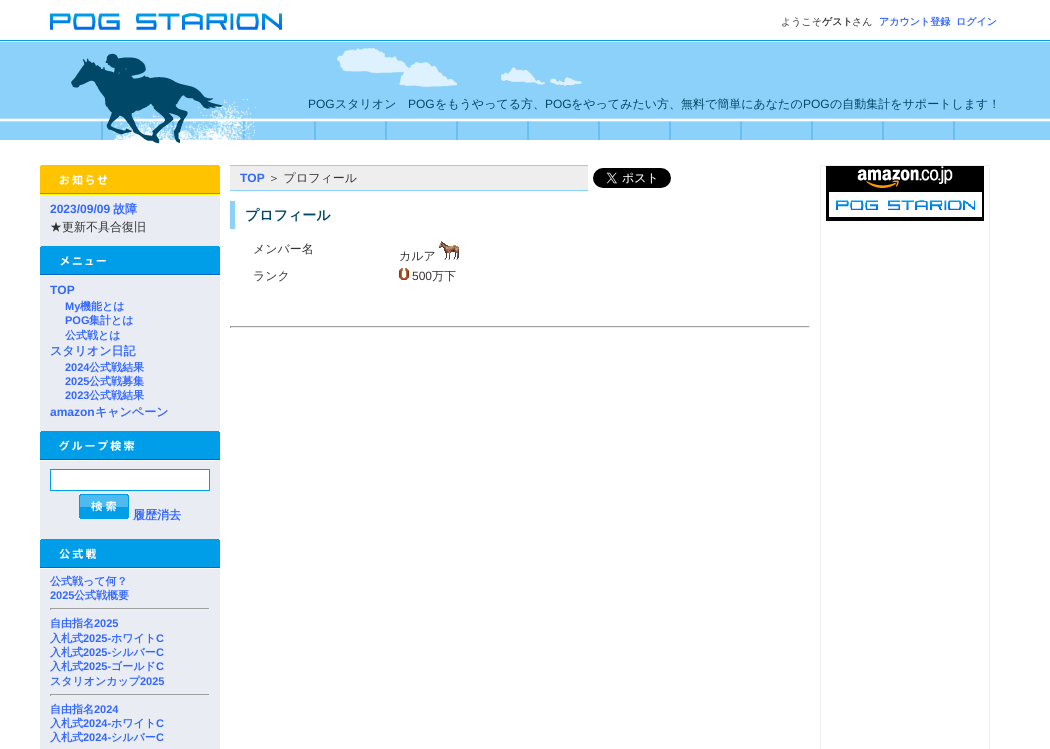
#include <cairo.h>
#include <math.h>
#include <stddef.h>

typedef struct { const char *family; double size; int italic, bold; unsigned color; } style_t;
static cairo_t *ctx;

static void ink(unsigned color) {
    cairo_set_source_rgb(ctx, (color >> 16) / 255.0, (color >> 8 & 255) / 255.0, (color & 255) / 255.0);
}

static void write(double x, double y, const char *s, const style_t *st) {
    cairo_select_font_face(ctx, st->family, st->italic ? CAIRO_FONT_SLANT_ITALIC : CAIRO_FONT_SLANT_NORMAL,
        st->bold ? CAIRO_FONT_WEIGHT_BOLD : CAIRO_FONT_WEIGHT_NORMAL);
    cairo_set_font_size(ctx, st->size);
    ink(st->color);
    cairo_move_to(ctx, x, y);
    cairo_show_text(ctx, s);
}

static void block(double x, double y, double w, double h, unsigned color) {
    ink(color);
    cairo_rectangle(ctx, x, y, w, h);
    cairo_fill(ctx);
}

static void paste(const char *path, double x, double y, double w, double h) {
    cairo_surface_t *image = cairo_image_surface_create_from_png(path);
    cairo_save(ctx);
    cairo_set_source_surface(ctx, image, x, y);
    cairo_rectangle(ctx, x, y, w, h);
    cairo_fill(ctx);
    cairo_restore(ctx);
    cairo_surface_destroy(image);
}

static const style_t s1 = {"WenQuanYi Zen Hei Medium", 10, 0, 0, 0x333333};
static const style_t s2 = {"WenQuanYi Zen Hei", 10, 0, 1, 0x333333};
static const style_t s3 = {"WenQuanYi Zen Hei", 10, 0, 1, 0x3366ff};
static const style_t s4 = {"Liberation Sans", 12, 0, 0, 0x004868};
static const style_t s5 = {"WenQuanYi Zen Hei Medium", 12, 0, 0, 0x004868};
static const style_t s6 = {"Liberation Sans", 12, 0, 1, 0x3366ff};
static const style_t s7 = {"WenQuanYi Zen Hei", 12, 0, 1, 0x3366ff};
static const style_t s8 = {"WenQuanYi Zen Hei Medium", 12, 0, 0, 0x333333};
static const style_t s9 = {"Liberation Sans", 11, 0, 1, 0x3366ff};
static const style_t s10 = {"WenQuanYi Zen Hei", 11, 0, 1, 0x3366ff};
static const style_t s11 = {"WenQuanYi Zen Hei", 14, 0, 1, 0x004868};
static const style_t s12 = {"Liberation Sans", 12, 0, 0, 0x333333};

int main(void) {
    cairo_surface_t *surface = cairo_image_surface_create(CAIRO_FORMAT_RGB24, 1050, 749);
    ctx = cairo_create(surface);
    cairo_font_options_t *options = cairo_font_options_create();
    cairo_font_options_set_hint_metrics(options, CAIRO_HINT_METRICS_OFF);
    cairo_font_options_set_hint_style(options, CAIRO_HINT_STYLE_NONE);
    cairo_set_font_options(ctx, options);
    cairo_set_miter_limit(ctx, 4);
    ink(0xffffff);
    cairo_paint(ctx);
    paste("pic1.png", 50, 13, 232, 17);
    write(781, 25, "ようこそ", &s1);
    write(822, 25, "ゲスト", &s2);
    write(852, 25, "さん", &s1);
    write(879, 25, "アカウント登録", &s3);
    write(956, 25, "ログイン", &s3);
    paste("pic2.png", 0, 40, 1050, 100);
    paste("pic3.png", 63, 48, 926, 96);
    write(308, 108, "POG", &s4);
    write(335, 108, "スタリオン", &s5);
    write(408, 108, "POG", &s4);
    write(435, 108, "をもうやってる方、", &s5);
    write(545, 108, "POG", &s4);
    write(571, 108, "をやってみたい方、無料で簡単にあなたの", &s5);
    write(803, 108, "POG", &s4);
    write(830, 108, "の自動集計をサポートします！", &s5);
    block(40, 195, 180, 554, 0xe9edf3);
    paste("pic4.png", 40, 165, 180, 30);
    write(50, 213, "2023/09/09", &s6);
    write(113, 213, "故障", &s7);
    write(50, 231, "★更新不具合復旧", &s8);
    paste("pic5.png", 40, 246, 180, 30);
    write(50, 294, "TOP", &s6);
    write(65, 310, "My", &s9);
    write(80, 310, "機能とは", &s10);
    write(65, 324, "POG", &s9);
    write(89, 324, "集計とは", &s10);
    write(65, 339, "公式戦とは", &s10);
    write(50, 355, "スタリオン日記", &s7);
    write(65, 371, "2024", &s9);
    write(89, 371, "公式戦結果", &s10);
    write(65, 385, "2025", &s9);
    write(89, 385, "公式戦募集", &s10);
    write(65, 399, "2023", &s9);
    write(89, 399, "公式戦結果", &s10);
    write(50, 416, "amazon", &s6);
    write(95, 416, "キャンペーン", &s7);
    paste("pic6.png", 40, 431, 180, 30);
    ink(0xffffff);
    cairo_rectangle(ctx, 50.5, 469.5, 159, 21);
    cairo_fill_preserve(ctx);
    ink(0x009ee8);
    cairo_set_line_width(ctx, 1);
    cairo_stroke(ctx);
    paste("pic7.png", 79, 494, 50, 25);
    write(133, 519, "履歴消去", &s7);
    paste("pic8.png", 40, 539, 180, 30);
    write(50, 585, "公式戦って何？", &s10);
    write(50, 599, "2025", &s9);
    write(74, 599, "公式戦概要", &s10);
    block(50, 608, 160, 1, 0x9f9f9f);
    block(209, 608, 1, 2, 0xeeeeee);
    block(50, 609, 160, 1, 0xeeeeee);
    block(50, 608, 1, 2, 0x9f9f9f);
    write(50, 627, "自由指名", &s10);
    write(94, 627, "2025", &s9);
    write(50, 642, "入札式", &s10);
    write(83, 642, "2025-", &s9);
    write(111, 642, "ホワイト", &s10);
    write(156, 642, "C", &s9);
    write(50, 656, "入札式", &s10);
    write(83, 656, "2025-", &s9);
    write(111, 656, "シルバー", &s10);
    write(156, 656, "C", &s9);
    write(50, 670, "入札式", &s10);
    write(83, 670, "2025-", &s9);
    write(111, 670, "ゴールド", &s10);
    write(156, 670, "C", &s9);
    write(50, 685, "スタリオンカップ", &s10);
    write(140, 685, "2025", &s9);
    block(50, 694, 160, 1, 0x9f9f9f);
    block(209, 694, 1, 2, 0xeeeeee);
    block(50, 695, 160, 1, 0xeeeeee);
    block(50, 694, 1, 2, 0x9f9f9f);
    write(50, 713, "自由指名", &s10);
    write(94, 713, "2024", &s9);
    write(50, 727, "入札式", &s10);
    write(83, 727, "2024-", &s9);
    write(111, 727, "ホワイト", &s10);
    write(156, 727, "C", &s9);
    write(50, 741, "入札式", &s10);
    write(83, 741, "2024-", &s9);
    write(111, 741, "シルバー", &s10);
    write(156, 741, "C", &s9);
    block(230, 166, 358, 24, 0xeeeeee);
    block(230, 165, 358, 1, 0x8cd1fa);
    block(230, 190, 358, 1, 0x8cd1fa);
    write(240, 182, "TOP", &s6);
    write(268, 182, "＞ プロフィール", &s8);
    paste("pic9.png", 593, 168, 78, 20);
    block(230, 201, 5, 28, 0x8cd1fa);
    write(245, 220, "プロフィール", &s11);
    write(253, 253, "メンバー名", &s8);
    write(399, 260, "カルア", &s8);
    paste("pic10.png", 439, 241, 20, 19);
    write(253, 280, "ランク", &s8);
    paste("pic11.png", 399, 268, 10, 12);
    write(412, 280, "500", &s12);
    write(432, 280, "万下", &s8);
    block(230, 326, 580, 1, 0x9f9f9f);
    block(809, 326, 1, 2, 0xeeeeee);
    block(230, 327, 580, 1, 0xeeeeee);
    block(230, 326, 1, 2, 0x9f9f9f);
    cairo_rectangle(ctx, 820.5, 165.5, 169, 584);
    ink(0xf0f0f0);
    cairo_stroke(ctx);
    paste("pic12.png", 826, 166, 158, 55);
    cairo_surface_write_to_png(surface, "screenshot.png");
    cairo_font_options_destroy(options);
    cairo_destroy(ctx);
    cairo_surface_destroy(surface);
    return 0;
}
